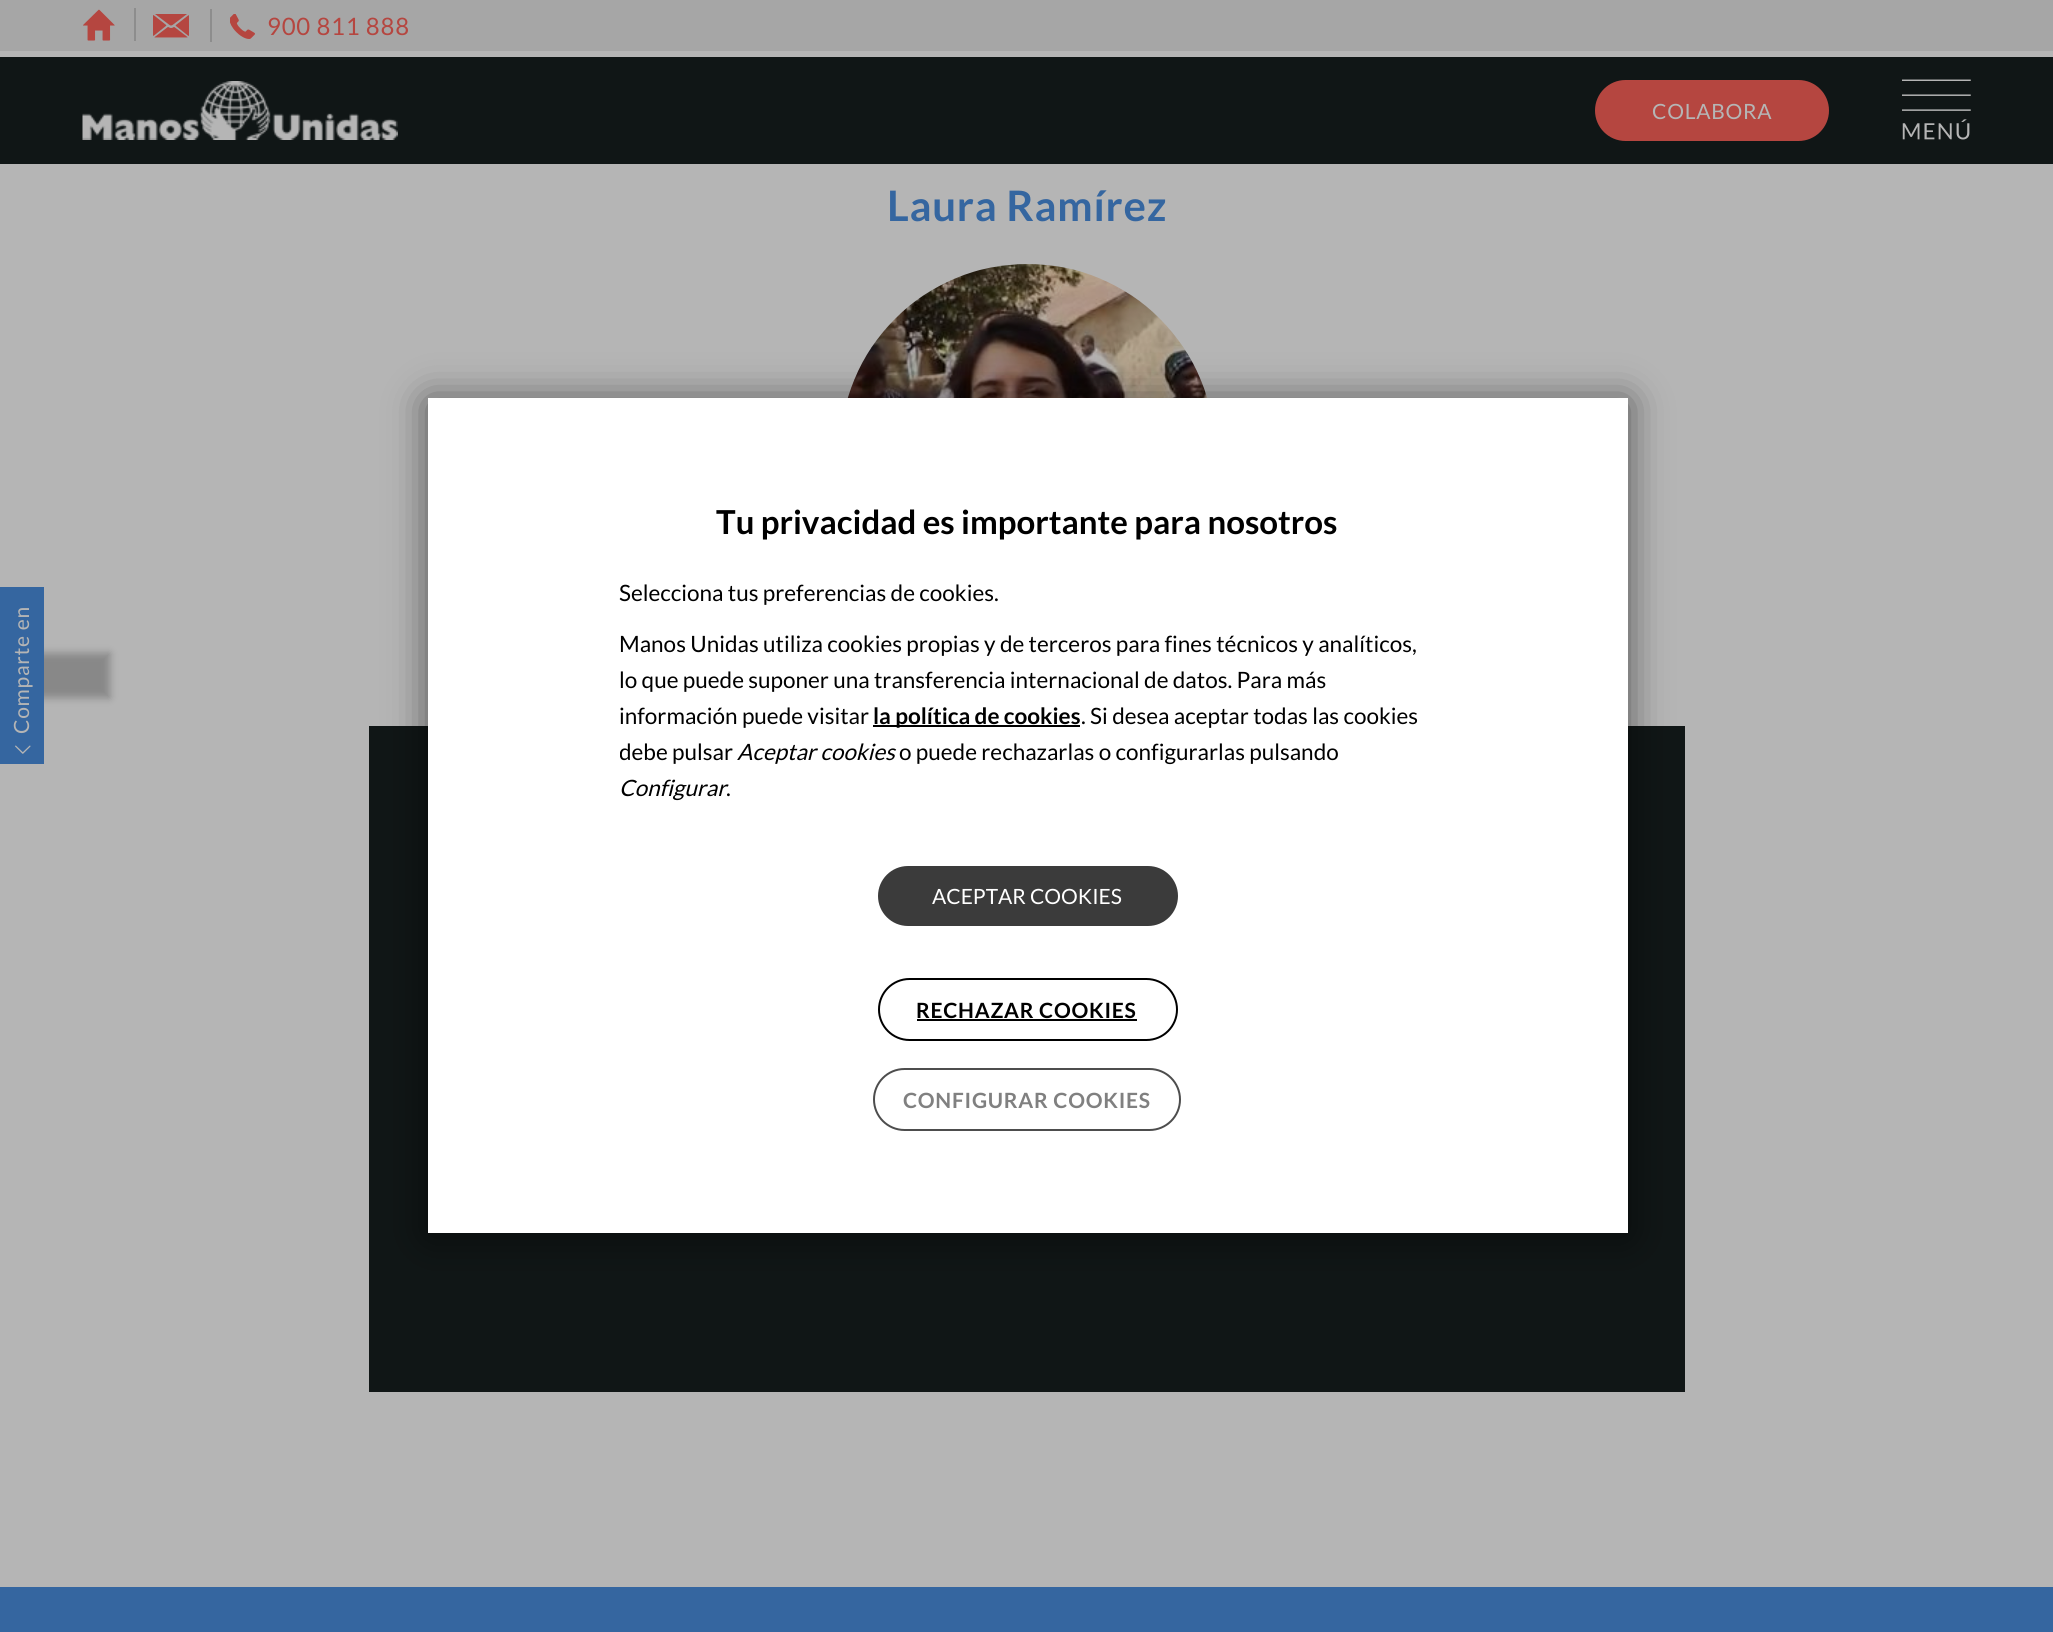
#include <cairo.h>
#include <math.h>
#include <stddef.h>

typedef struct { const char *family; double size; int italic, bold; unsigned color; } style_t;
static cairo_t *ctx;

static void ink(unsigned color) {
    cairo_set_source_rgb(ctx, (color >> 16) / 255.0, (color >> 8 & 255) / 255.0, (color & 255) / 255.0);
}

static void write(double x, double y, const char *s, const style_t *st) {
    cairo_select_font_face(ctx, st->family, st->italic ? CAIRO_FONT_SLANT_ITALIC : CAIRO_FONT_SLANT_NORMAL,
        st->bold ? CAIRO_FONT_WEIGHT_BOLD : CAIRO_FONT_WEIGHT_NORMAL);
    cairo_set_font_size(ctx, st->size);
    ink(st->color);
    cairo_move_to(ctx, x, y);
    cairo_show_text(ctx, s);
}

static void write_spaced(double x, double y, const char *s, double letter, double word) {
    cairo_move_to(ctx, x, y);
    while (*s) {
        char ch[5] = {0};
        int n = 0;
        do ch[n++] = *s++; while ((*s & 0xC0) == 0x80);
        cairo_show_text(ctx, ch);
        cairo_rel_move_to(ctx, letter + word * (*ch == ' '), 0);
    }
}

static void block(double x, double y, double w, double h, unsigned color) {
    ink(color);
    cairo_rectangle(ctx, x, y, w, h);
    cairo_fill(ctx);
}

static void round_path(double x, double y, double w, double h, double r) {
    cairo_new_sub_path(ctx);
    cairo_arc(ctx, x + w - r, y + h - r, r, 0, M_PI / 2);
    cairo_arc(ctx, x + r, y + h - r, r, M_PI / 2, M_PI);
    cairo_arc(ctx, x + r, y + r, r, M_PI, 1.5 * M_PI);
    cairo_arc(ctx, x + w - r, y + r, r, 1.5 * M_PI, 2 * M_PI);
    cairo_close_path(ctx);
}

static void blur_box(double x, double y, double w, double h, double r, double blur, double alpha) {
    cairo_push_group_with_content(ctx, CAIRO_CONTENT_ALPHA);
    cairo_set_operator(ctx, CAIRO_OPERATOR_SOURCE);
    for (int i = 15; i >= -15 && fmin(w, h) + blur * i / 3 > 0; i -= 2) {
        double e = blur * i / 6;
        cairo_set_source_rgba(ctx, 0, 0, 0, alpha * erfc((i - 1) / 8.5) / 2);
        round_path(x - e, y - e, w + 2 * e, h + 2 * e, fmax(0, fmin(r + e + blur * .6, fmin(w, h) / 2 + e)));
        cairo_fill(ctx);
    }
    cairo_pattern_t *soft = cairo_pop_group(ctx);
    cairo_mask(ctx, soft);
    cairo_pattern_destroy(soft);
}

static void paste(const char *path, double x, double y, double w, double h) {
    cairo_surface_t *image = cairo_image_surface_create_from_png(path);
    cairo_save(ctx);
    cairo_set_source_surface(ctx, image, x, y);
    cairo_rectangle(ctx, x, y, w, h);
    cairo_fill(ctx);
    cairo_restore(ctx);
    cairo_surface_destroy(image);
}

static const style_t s1 = {"Lato", 33, 0, 1, 0x000000};
static const style_t s2 = {"Lato", 22.5, 0, 0, 0x000000};
static const style_t s3 = {"Lato", 22.5, 0, 1, 0x000000};
static const style_t s4 = {"Lato", 22.5, 1, 0, 0x000000};
static const style_t s5 = {"Lato", 21, 0, 0, 0xffffff};

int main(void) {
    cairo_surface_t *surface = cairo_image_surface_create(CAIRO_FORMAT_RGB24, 2053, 1632);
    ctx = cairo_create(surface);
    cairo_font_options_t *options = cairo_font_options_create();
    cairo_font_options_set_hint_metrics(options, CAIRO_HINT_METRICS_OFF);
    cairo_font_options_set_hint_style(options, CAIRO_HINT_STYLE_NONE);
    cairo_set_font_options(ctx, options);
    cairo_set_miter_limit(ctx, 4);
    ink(0xb5b5b5);
    cairo_paint(ctx);
    block(0, 0, 2053, 51, 0xa6a6a6);
    paste("pic1.png", 83, 9, 32, 32);
    block(134, 8, 2, 33, 0x8d8d8d);
    paste("pic2.png", 153, 14, 36, 24);
    block(210, 9, 2, 33, 0x8d8d8d);
    paste("pic3.png", 230, 14, 25, 25);
    cairo_select_font_face(ctx, "Lato", CAIRO_FONT_SLANT_NORMAL, CAIRO_FONT_WEIGHT_NORMAL);
    cairo_set_font_size(ctx, 24);
    ink(0xb54640);
    write_spaced(267, 35, "900 811 888", 0.75, 0);
    block(0, 57, 2053, 107, 0x101616);
    paste("pic4.png", 82, 81, 316, 59);
    paste("pic5.png", 1902, 79, 69, 61);
    ink(0xb54640);
    round_path(1595, 80, 234, 61, 30.5);
    cairo_fill(ctx);
    cairo_set_font_size(ctx, 21);
    ink(0xb5b5b5);
    write_spaced(1652, 119, "COLABORA", 0.75, 0);
    cairo_select_font_face(ctx, "Lato", CAIRO_FONT_SLANT_NORMAL, CAIRO_FONT_WEIGHT_BOLD);
    cairo_set_font_size(ctx, 42);
    ink(0x3566a0);
    write_spaced(887, 221, "Laura Ramírez", 0.75, 0);
    paste("pic6.png", 847, 264, 361, 134);
    block(369, 726, 1316, 666, 0x101616);
    ink(0x000000);
    blur_box(-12, 653, 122, 45, 0, 4, 0.25);
    block(0, 587, 44, 177, 0x3566a0);
    cairo_select_font_face(ctx, "Lato", CAIRO_FONT_SLANT_NORMAL, CAIRO_FONT_WEIGHT_NORMAL);
    cairo_set_font_size(ctx, 21);
    ink(0xb5b5b5);
    cairo_save(ctx);
    cairo_translate(ctx, 29, 734);
    cairo_rotate(ctx, -90 * M_PI / 180);
    write_spaced(0, 0, "Comparte en", 0.75, 0);
    cairo_restore(ctx);
    paste("pic7.png", 15, 745, 16, 9);
    block(0, 1587, 2053, 45, 0x3566a0);
    ink(0x000000);
    blur_box(428, 401, 1200, 835, 0, 19.5, 0.55);
    block(428, 398, 1200, 835, 0xffffff);
    write(716, 534, "Tu privacidad es importante para nosotros", &s1);
    write(619, 601, "Selecciona tus preferencias de cookies.", &s2);
    write(619, 652, "Manos Unidas utiliza cookies propias y de terceros para fines técnicos y analíticos,", &s2);
    write(619, 688, "lo que puede suponer una transferencia internacional de datos. Para más", &s2);
    write(619, 724, "información puede visitar", &s2);
    block(873, 725, 207, 2, 0x000000);
    write(873, 724, "la política de cookies", &s3);
    write(1081, 724, ". Si desea aceptar todas las cookies", &s2);
    cairo_save(ctx);
    cairo_rectangle(ctx, 620, 488, 816, 655);
    cairo_clip(ctx);
    write(619, 760, "debe pulsar", &s2);
    cairo_restore(ctx);
    write(737, 760, "Aceptar cookies", &s4);
    write(899, 760, "o puede rechazarlas o configurarlas pulsando", &s2);
    write(619, 796, "Configurar", &s4);
    write(726, 796, ".", &s2);
    ink(0x3b3b3b);
    round_path(878, 866, 300, 60, 30);
    cairo_fill(ctx);
    write(932, 904, "ACEPTAR COOKIES", &s5);
    round_path(879, 979, 298, 61, 30.5);
    ink(0x000000);
    cairo_stroke(ctx);
    cairo_select_font_face(ctx, "Lato", CAIRO_FONT_SLANT_NORMAL, CAIRO_FONT_WEIGHT_BOLD);
    write_spaced(916, 1018, "RECHAZAR COOKIES", 0.75, 0);
    block(917, 1019, 220, 2, 0x000000);
    round_path(874, 1069, 306, 61, 30.5);
    ink(0x4d4d4d);
    cairo_stroke(ctx);
    ink(0x808080);
    write_spaced(903, 1108, "CONFIGURAR COOKIES", 0.75, 0);
    cairo_surface_write_to_png(surface, "screenshot.png");
    cairo_font_options_destroy(options);
    cairo_destroy(ctx);
    cairo_surface_destroy(surface);
    return 0;
}
